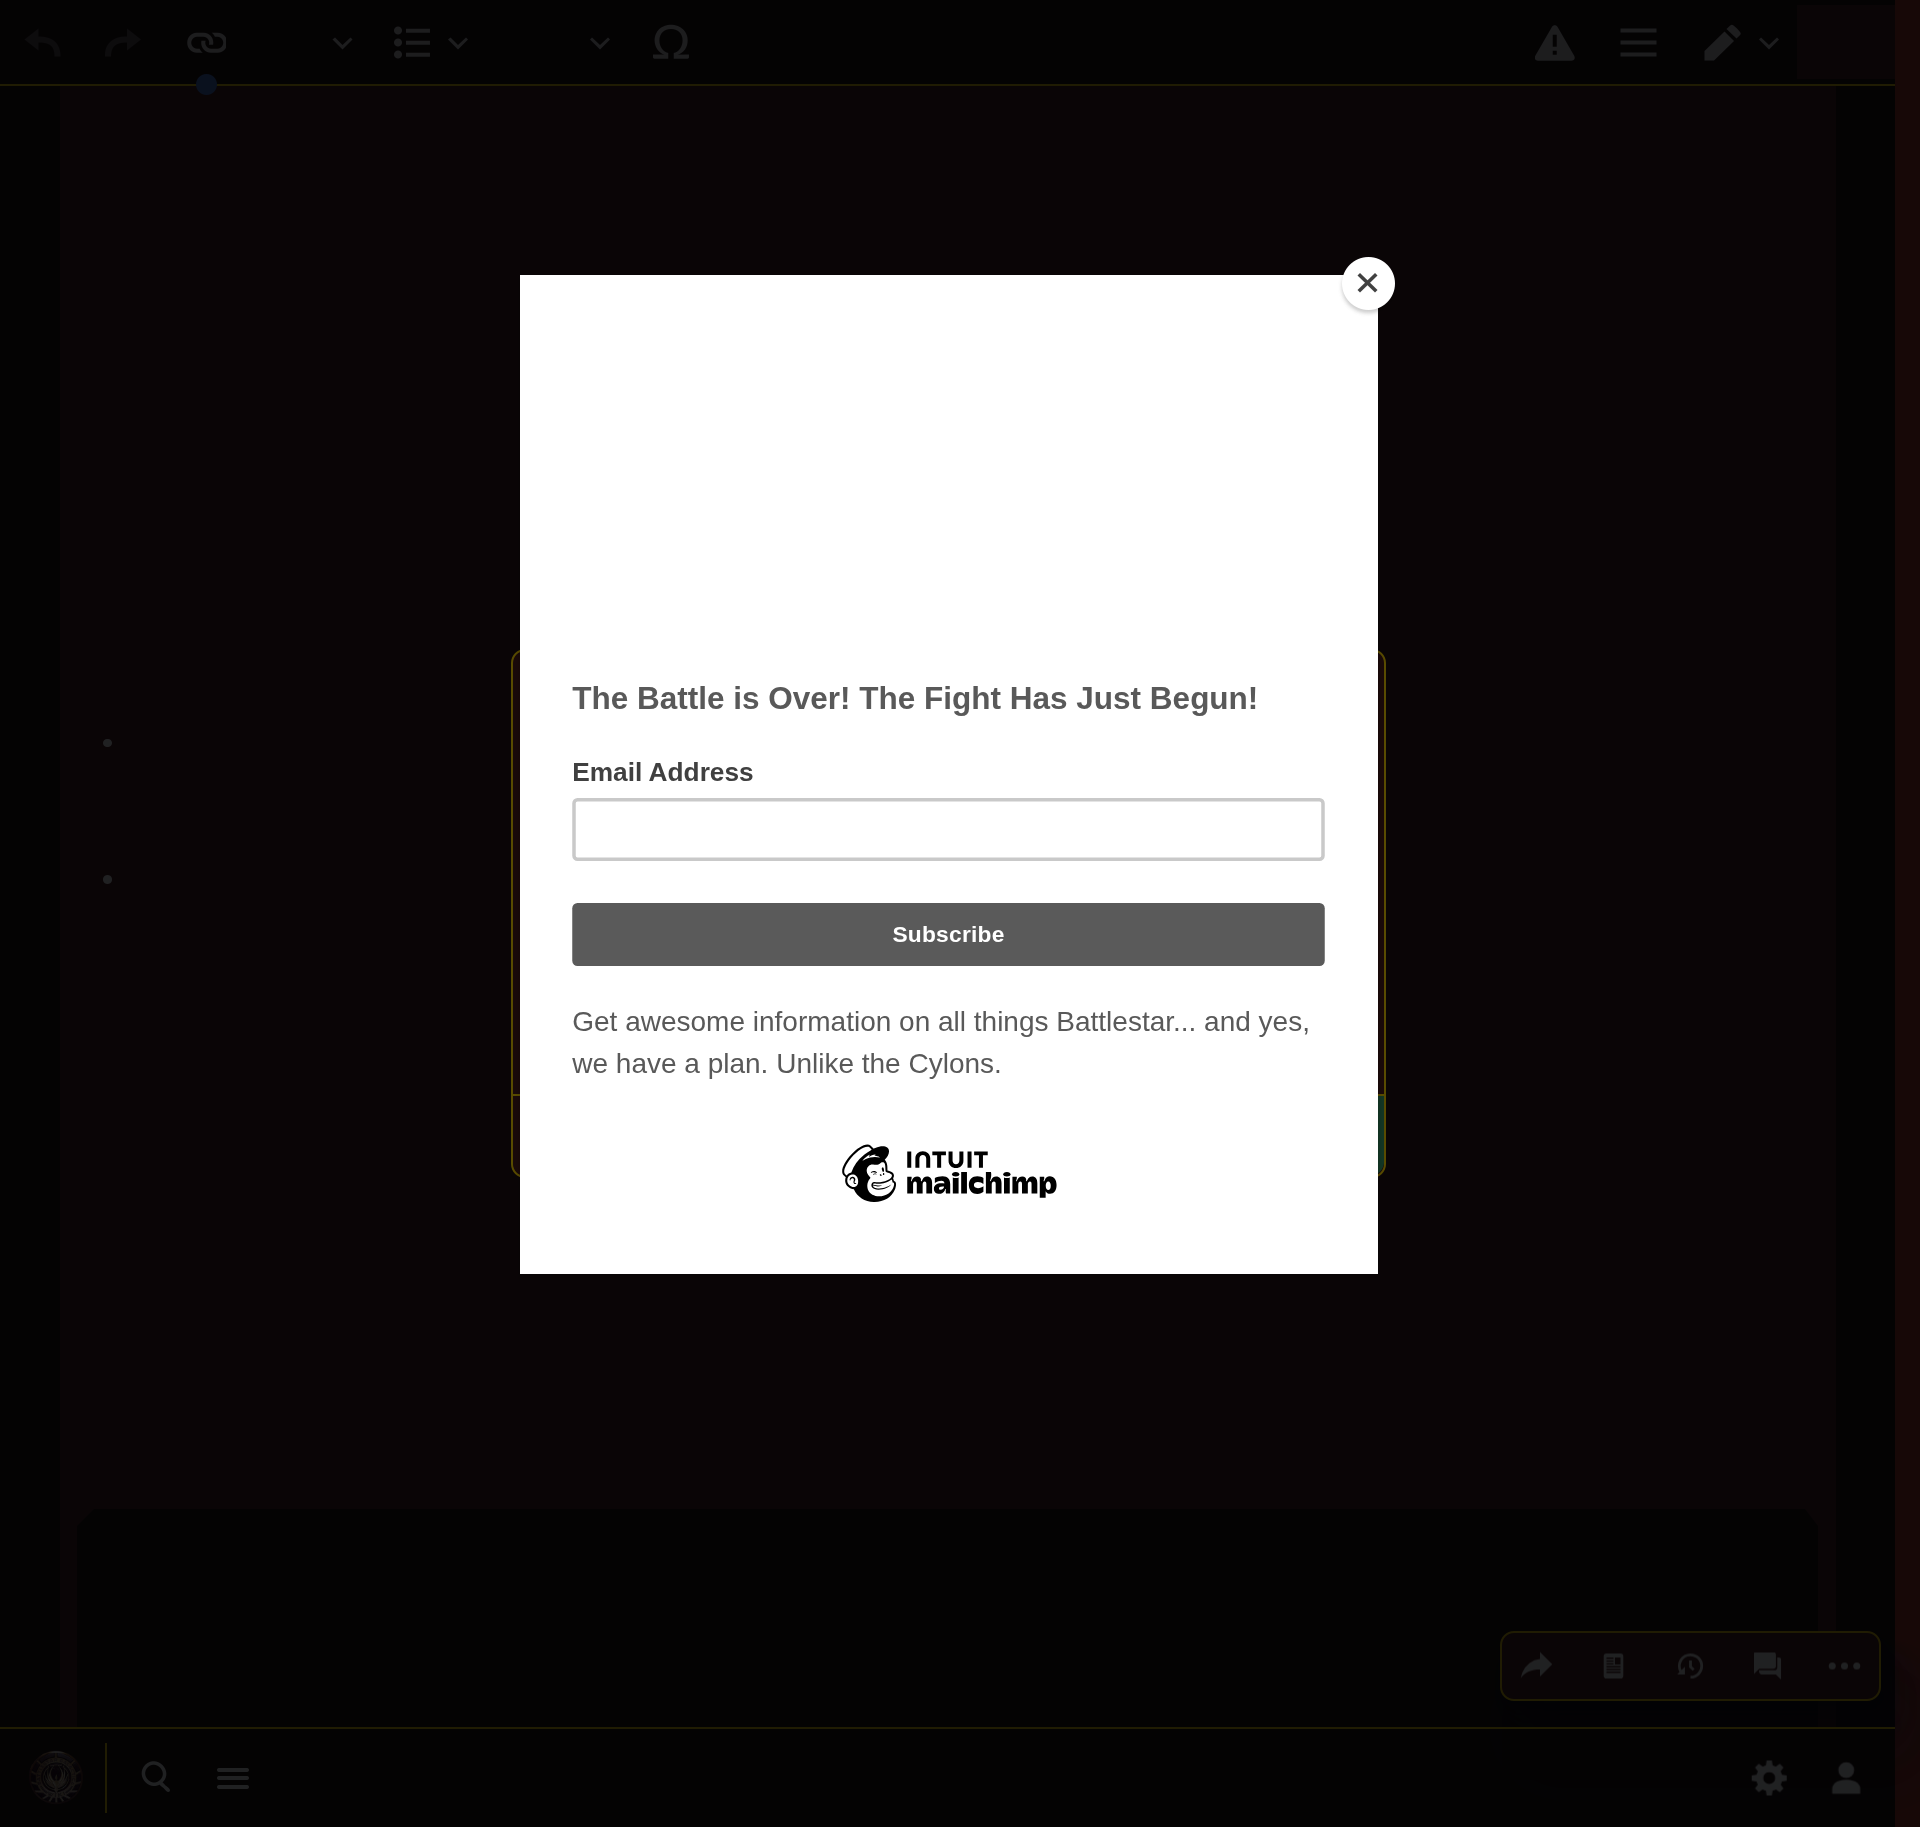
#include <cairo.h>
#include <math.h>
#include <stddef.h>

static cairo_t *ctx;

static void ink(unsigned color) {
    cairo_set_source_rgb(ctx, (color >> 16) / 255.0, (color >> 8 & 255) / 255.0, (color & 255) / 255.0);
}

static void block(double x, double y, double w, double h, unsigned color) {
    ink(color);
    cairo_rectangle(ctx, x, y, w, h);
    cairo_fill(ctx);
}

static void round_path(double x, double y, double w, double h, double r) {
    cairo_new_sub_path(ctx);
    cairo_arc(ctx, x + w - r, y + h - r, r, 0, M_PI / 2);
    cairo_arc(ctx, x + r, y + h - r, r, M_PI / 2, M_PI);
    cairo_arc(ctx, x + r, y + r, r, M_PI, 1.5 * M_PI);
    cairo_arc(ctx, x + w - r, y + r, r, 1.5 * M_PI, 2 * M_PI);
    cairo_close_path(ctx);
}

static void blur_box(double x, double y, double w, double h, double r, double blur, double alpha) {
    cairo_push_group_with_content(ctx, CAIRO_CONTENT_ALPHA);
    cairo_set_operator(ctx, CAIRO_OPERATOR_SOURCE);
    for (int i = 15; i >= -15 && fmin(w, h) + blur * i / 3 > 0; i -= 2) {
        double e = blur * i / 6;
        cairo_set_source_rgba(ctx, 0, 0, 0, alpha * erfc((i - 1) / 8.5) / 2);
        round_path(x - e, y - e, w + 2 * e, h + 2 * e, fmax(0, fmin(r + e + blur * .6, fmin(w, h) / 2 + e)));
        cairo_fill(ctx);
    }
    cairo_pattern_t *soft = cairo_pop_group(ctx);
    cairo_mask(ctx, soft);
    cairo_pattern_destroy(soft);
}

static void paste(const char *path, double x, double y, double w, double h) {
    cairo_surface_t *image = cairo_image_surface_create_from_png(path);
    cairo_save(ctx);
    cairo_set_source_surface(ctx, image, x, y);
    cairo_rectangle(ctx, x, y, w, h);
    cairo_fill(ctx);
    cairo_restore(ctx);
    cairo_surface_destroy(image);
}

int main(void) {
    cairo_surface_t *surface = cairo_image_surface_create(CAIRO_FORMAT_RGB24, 1920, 1827);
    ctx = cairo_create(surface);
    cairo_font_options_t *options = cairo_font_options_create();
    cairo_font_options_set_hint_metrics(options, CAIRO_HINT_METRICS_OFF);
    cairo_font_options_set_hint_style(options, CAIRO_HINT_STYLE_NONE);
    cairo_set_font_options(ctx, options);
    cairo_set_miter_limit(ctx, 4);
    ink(0x170807);
    cairo_paint(ctx);
    block(0, 84, 1895, 2, 0xffd700);
    ink(0x5d5251);
    cairo_new_path(ctx);
    cairo_move_to(ctx, 24.5, 39.5);
    cairo_line_to(ctx, 38.5, 50.5);
    cairo_line_to(ctx, 38.5, 42.5);
    cairo_curve_to(ctx, 49, 42.5, 54.5, 45.5, 54.5, 56.5);
    cairo_line_to(ctx, 60.5, 56.5);
    cairo_curve_to(ctx, 60.5, 42.5, 52, 36.5, 38.5, 36.5);
    cairo_line_to(ctx, 38.5, 28.5);
    cairo_close_path(ctx);
    cairo_fill(ctx);
    cairo_new_path(ctx);
    cairo_move_to(ctx, 141, 39.5);
    cairo_line_to(ctx, 127, 28.5);
    cairo_line_to(ctx, 127, 50.5);
    cairo_close_path(ctx);
    cairo_move_to(ctx, 127, 36.5);
    cairo_line_to(ctx, 127, 42.5);
    cairo_curve_to(ctx, 117, 42.5, 111, 45.5, 111, 56.5);
    cairo_line_to(ctx, 105, 56.5);
    cairo_line_to(ctx, 105, 54.5);
    cairo_curve_to(ctx, 105, 42.5, 115, 36.5, 125, 36.5);
    cairo_close_path(ctx);
    cairo_fill(ctx);
    paste("pic2.png", 187, 32, 39, 21);
    block(60, 86, 1776, 1641, 0x471919);
    ink(0x467be3);
    cairo_arc(ctx, 206.5, 84.5, 10.5, 0, 2 * M_PI);
    cairo_fill(ctx);
    ink(0xe1dfdf);
    cairo_new_path(ctx);
    cairo_move_to(ctx, 350.5, 37.5);
    cairo_line_to(ctx, 342.5, 45);
    cairo_line_to(ctx, 335, 37.5);
    cairo_line_to(ctx, 332.5, 39.5);
    cairo_line_to(ctx, 342.5, 49.5);
    cairo_line_to(ctx, 352.5, 39.5);
    cairo_close_path(ctx);
    cairo_fill(ctx);
    paste("pic3.png", 394, 26, 36, 33);
    cairo_new_path(ctx);
    cairo_move_to(ctx, 466, 37.5);
    cairo_line_to(ctx, 458, 45);
    cairo_line_to(ctx, 450.5, 37.5);
    cairo_line_to(ctx, 448, 39.5);
    cairo_line_to(ctx, 458, 49.5);
    cairo_line_to(ctx, 468, 39.5);
    cairo_close_path(ctx);
    cairo_fill(ctx);
    cairo_new_path(ctx);
    cairo_move_to(ctx, 608, 37.5);
    cairo_line_to(ctx, 600, 45);
    cairo_line_to(ctx, 592, 37.5);
    cairo_line_to(ctx, 590, 39.5);
    cairo_line_to(ctx, 600, 49.5);
    cairo_line_to(ctx, 610, 39.5);
    cairo_close_path(ctx);
    cairo_fill(ctx);
    paste("pic4.png", 653, 24, 36, 35);
    paste("pic5.png", 1535, 25, 40, 36);
    cairo_new_path(ctx);
    cairo_move_to(ctx, 1620.5, 28.5);
    cairo_line_to(ctx, 1620.5, 32.5);
    cairo_line_to(ctx, 1656.5, 32.5);
    cairo_line_to(ctx, 1656.5, 28.5);
    cairo_close_path(ctx);
    cairo_move_to(ctx, 1620.5, 44.5);
    cairo_line_to(ctx, 1656.5, 44.5);
    cairo_line_to(ctx, 1656.5, 40.5);
    cairo_line_to(ctx, 1620.5, 40.5);
    cairo_close_path(ctx);
    cairo_move_to(ctx, 1620.5, 56.5);
    cairo_line_to(ctx, 1656.5, 56.5);
    cairo_line_to(ctx, 1656.5, 52.5);
    cairo_line_to(ctx, 1620.5, 52.5);
    cairo_close_path(ctx);
    cairo_fill(ctx);
    cairo_new_path(ctx);
    cairo_move_to(ctx, 1736.5, 38.5);
    cairo_curve_to(ctx, 1741.5, 33.5, 1742.5, 34.5, 1737, 28.5);
    cairo_curve_to(ctx, 1731, 23, 1732, 24, 1726.5, 29);
    cairo_close_path(ctx);
    cairo_move_to(ctx, 1704.5, 51);
    cairo_line_to(ctx, 1704.5, 60.5);
    cairo_line_to(ctx, 1714, 60.5);
    cairo_line_to(ctx, 1734, 41);
    cairo_line_to(ctx, 1724.5, 31.5);
    cairo_close_path(ctx);
    cairo_fill(ctx);
    cairo_new_path(ctx);
    cairo_move_to(ctx, 1777, 37.5);
    cairo_line_to(ctx, 1769, 45);
    cairo_line_to(ctx, 1761, 37.5);
    cairo_line_to(ctx, 1759, 39.5);
    cairo_line_to(ctx, 1769, 49.5);
    cairo_line_to(ctx, 1779, 39.5);
    cairo_close_path(ctx);
    cairo_fill(ctx);
    block(1797, 5, 98, 74, 0x481919);
    ink(0xffffff);
    round_path(103, 739, 9, 8, 4);
    cairo_fill(ctx);
    cairo_arc(ctx, 107.5, 879.5, 4.5, 0, 2 * M_PI);
    cairo_fill(ctx);
    ink(0x160807);
    cairo_new_path(ctx);
    cairo_move_to(ctx, 77, 1526);
    cairo_line_to(ctx, 77, 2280);
    cairo_line_to(ctx, 94, 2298);
    cairo_line_to(ctx, 1801, 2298);
    cairo_line_to(ctx, 1818, 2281);
    cairo_line_to(ctx, 1818, 1526);
    cairo_line_to(ctx, 1805, 1509);
    cairo_line_to(ctx, 94, 1509);
    cairo_close_path(ctx);
    cairo_fill(ctx);
    ink(0x04060b);
    blur_box(1533, 1694, 375, 63, 11, 37.5, 0.3);
    blur_box(1523, 1673, 374, 63, 11, 24.5, 0.3);
    blur_box(1516, 1659, 376, 65, 12, 16, 0.3);
    blur_box(1510, 1649, 377, 66, 12, 10, 0.3);
    blur_box(1505, 1642, 380, 68, 12, 6, 0.3);
    blur_box(1503, 1636, 380, 70, 14, 3, 0.3);
    blur_box(1500, 1633, 381, 70, 14, 0.5, 0.3);
    ink(0x481919);
    round_path(1501, 1632, 379, 68, 13);
    cairo_fill_preserve(ctx);
    ink(0xffd700);
    cairo_stroke(ctx);
    paste("pic6.png", 1520, 1651, 33, 28);
    paste("pic7.png", 1603, 1653, 21, 26);
    paste("pic8.png", 1677, 1653, 27, 26);
    paste("pic9.png", 1754, 1652, 28, 28);
    paste("pic10.png", 1828, 1662, 33, 8);
    block(1502, 1729, 393, 51, 0x170807);
    block(0, 1727, 1895, 2, 0xffd700);
    block(105, 1743, 2, 70, 0xffd700);
    paste("pic11.png", 29, 1750, 54, 55);
    ink(0xffffff);
    cairo_new_path(ctx);
    cairo_move_to(ctx, 159.5, 1782);
    cairo_curve_to(ctx, 161.5, 1780, 164.5, 1784.5, 165.5, 1785.5);
    cairo_curve_to(ctx, 167, 1786.5, 171.5, 1789.5, 169.5, 1791.5);
    cairo_curve_to(ctx, 167.5, 1793.5, 164.5, 1789, 163.5, 1788);
    cairo_curve_to(ctx, 162, 1787, 157.5, 1784, 159.5, 1782);
    cairo_close_path(ctx);
    cairo_fill(ctx);
    cairo_new_path(ctx);
    cairo_move_to(ctx, 146.5, 1766);
    cairo_curve_to(ctx, 156.5, 1756.5, 171, 1771.5, 161.5, 1781);
    cairo_curve_to(ctx, 151.5, 1791, 137, 1776, 146.5, 1766);
    cairo_close_path(ctx);
    cairo_set_line_width(ctx, 3.5);
    cairo_stroke(ctx);
    round_path(217, 1768, 32, 4, 2);
    cairo_fill(ctx);
    round_path(217, 1776, 32, 4, 2);
    cairo_fill(ctx);
    round_path(217, 1785, 32, 4, 2);
    cairo_fill(ctx);
    paste("pic12.png", 1751, 1760, 36, 36);
    paste("pic13.png", 1831, 1761, 30, 34);
    cairo_set_source_rgba(ctx, 0.027, 0.035, 0.051, 0.65);
    cairo_rectangle(ctx, 0, 0, 1895, 1827);
    cairo_fill(ctx);
    ink(0x481919);
    round_path(512, 650, 873, 527, 13);
    cairo_fill_preserve(ctx);
    ink(0xffd700);
    cairo_set_line_width(ctx, 2);
    cairo_stroke(ctx);
    cairo_save(ctx);
    cairo_rectangle(ctx, 513, 651, 871, 525);
    cairo_clip(ctx);
    cairo_rectangle(ctx, 512, 1095, 873, 82);
    cairo_stroke(ctx);
    cairo_restore(ctx);
    ink(0x481919);
    cairo_new_path(ctx);
    cairo_move_to(ctx, 513, 1096);
    cairo_line_to(ctx, 1038, 1096);
    cairo_line_to(ctx, 1038, 1176);
    cairo_line_to(ctx, 527, 1176);
    cairo_curve_to(ctx, 519.5, 1176, 513, 1169.5, 513, 1162);
    cairo_close_path(ctx);
    cairo_fill(ctx);
    ink(0x339966);
    cairo_new_path(ctx);
    cairo_move_to(ctx, 1040, 1096);
    cairo_line_to(ctx, 1384, 1096);
    cairo_line_to(ctx, 1384, 1162);
    cairo_curve_to(ctx, 1384, 1169.5, 1377.5, 1176, 1370, 1176);
    cairo_line_to(ctx, 1040, 1176);
    cairo_close_path(ctx);
    cairo_fill(ctx);
    cairo_set_source_rgba(ctx, 0, 0, 0, 0.65);
    cairo_rectangle(ctx, 0, 0, 1895, 1827);
    cairo_fill(ctx);
    ink(0x000000);
    blur_box(520, 278, 857, 1000, 0, 3.5, 0.2);
    paste("pic1.png", 520, 275, 858, 999);
    blur_box(1342, 261, 53, 52, 26, 2, 0.2);
    ink(0xffffff);
    cairo_arc(ctx, 1368.5, 283.5, 26.5, 0, 2 * M_PI);
    cairo_fill(ctx);
    ink(0x414141);
    cairo_new_path(ctx);
    cairo_move_to(ctx, 1375, 273);
    cairo_line_to(ctx, 1377.5, 275.5);
    cairo_line_to(ctx, 1360, 292.5);
    cairo_line_to(ctx, 1357.5, 290);
    cairo_close_path(ctx);
    cairo_fill(ctx);
    cairo_new_path(ctx);
    cairo_move_to(ctx, 1357.5, 275.5);
    cairo_line_to(ctx, 1360, 273);
    cairo_line_to(ctx, 1377.5, 290);
    cairo_line_to(ctx, 1375, 292.5);
    cairo_close_path(ctx);
    cairo_fill(ctx);
    cairo_surface_write_to_png(surface, "screenshot.png");
    cairo_font_options_destroy(options);
    cairo_destroy(ctx);
    cairo_surface_destroy(surface);
    return 0;
}
